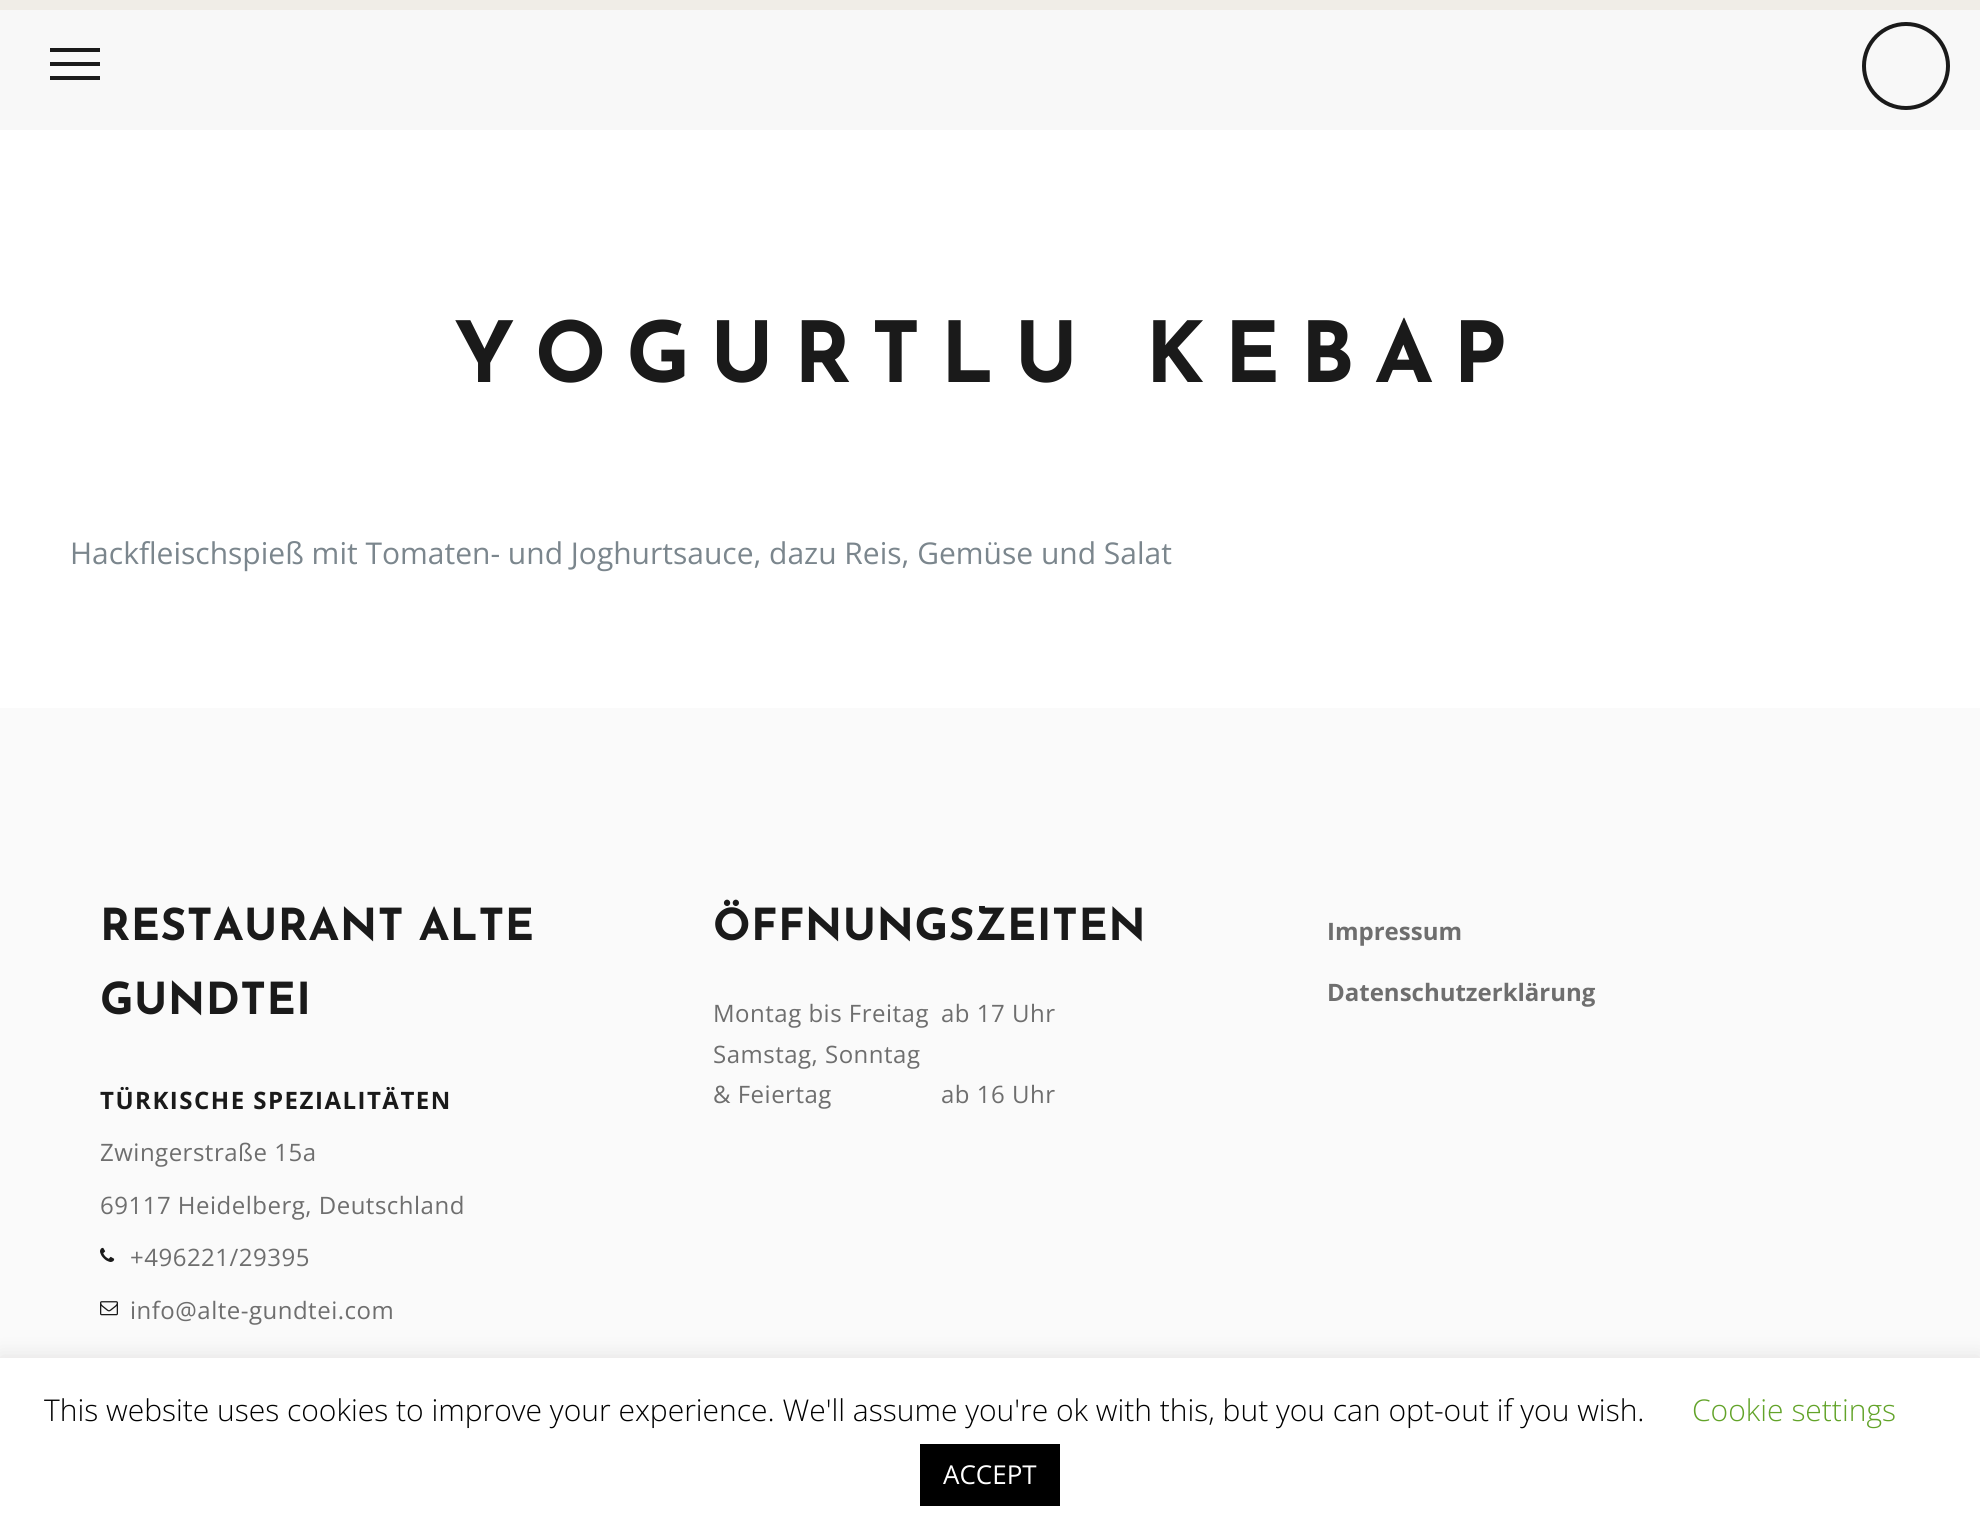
#include <cairo.h>
#include <math.h>
#include <stddef.h>

typedef struct { const char *family; double size; int italic, bold; unsigned color; } style_t;
static cairo_t *ctx;

static void ink(unsigned color) {
    cairo_set_source_rgb(ctx, (color >> 16) / 255.0, (color >> 8 & 255) / 255.0, (color & 255) / 255.0);
}

static void write(double x, double y, const char *s, const style_t *st) {
    cairo_select_font_face(ctx, st->family, st->italic ? CAIRO_FONT_SLANT_ITALIC : CAIRO_FONT_SLANT_NORMAL,
        st->bold ? CAIRO_FONT_WEIGHT_BOLD : CAIRO_FONT_WEIGHT_NORMAL);
    cairo_set_font_size(ctx, st->size);
    ink(st->color);
    cairo_move_to(ctx, x, y);
    cairo_show_text(ctx, s);
}

static void write_spaced(double x, double y, const char *s, double letter, double word) {
    cairo_move_to(ctx, x, y);
    while (*s) {
        char ch[5] = {0};
        int n = 0;
        do ch[n++] = *s++; while ((*s & 0xC0) == 0x80);
        cairo_show_text(ctx, ch);
        cairo_rel_move_to(ctx, letter + word * (*ch == ' '), 0);
    }
}

static void block(double x, double y, double w, double h, unsigned color) {
    ink(color);
    cairo_rectangle(ctx, x, y, w, h);
    cairo_fill(ctx);
}

static void round_path(double x, double y, double w, double h, double r) {
    cairo_new_sub_path(ctx);
    cairo_arc(ctx, x + w - r, y + h - r, r, 0, M_PI / 2);
    cairo_arc(ctx, x + r, y + h - r, r, M_PI / 2, M_PI);
    cairo_arc(ctx, x + r, y + r, r, M_PI, 1.5 * M_PI);
    cairo_arc(ctx, x + w - r, y + r, r, 1.5 * M_PI, 2 * M_PI);
    cairo_close_path(ctx);
}

static void blur_box(double x, double y, double w, double h, double r, double blur, double alpha) {
    cairo_push_group_with_content(ctx, CAIRO_CONTENT_ALPHA);
    cairo_set_operator(ctx, CAIRO_OPERATOR_SOURCE);
    for (int i = 15; i >= -15 && fmin(w, h) + blur * i / 3 > 0; i -= 2) {
        double e = blur * i / 6;
        cairo_set_source_rgba(ctx, 0, 0, 0, alpha * erfc((i - 1) / 8.5) / 2);
        round_path(x - e, y - e, w + 2 * e, h + 2 * e, fmax(0, fmin(r + e + blur * .6, fmin(w, h) / 2 + e)));
        cairo_fill(ctx);
    }
    cairo_pattern_t *soft = cairo_pop_group(ctx);
    cairo_mask(ctx, soft);
    cairo_pattern_destroy(soft);
}

static void paste(const char *path, double x, double y, double w, double h) {
    cairo_surface_t *image = cairo_image_surface_create_from_png(path);
    cairo_save(ctx);
    cairo_set_source_surface(ctx, image, x, y);
    cairo_rectangle(ctx, x, y, w, h);
    cairo_fill(ctx);
    cairo_restore(ctx);
    cairo_surface_destroy(image);
}

static const style_t s1 = {"Open Sans", 30, 0, 0, 0x7b868d};
static const style_t s2 = {"Open Sans", 24, 0, 1, 0x6e6e6e};
static const style_t s3 = {"Open Sans Light", 30, 0, 0, 0x000000};
static const style_t s4 = {"Open Sans Light", 30, 0, 0, 0x62a329};
static const style_t s5 = {"Open Sans", 26, 0, 0, 0xffffff};

int main(void) {
    cairo_surface_t *surface = cairo_image_surface_create(CAIRO_FORMAT_RGB24, 1980, 1540);
    ctx = cairo_create(surface);
    cairo_font_options_t *options = cairo_font_options_create();
    cairo_font_options_set_hint_metrics(options, CAIRO_HINT_METRICS_OFF);
    cairo_font_options_set_hint_style(options, CAIRO_HINT_STYLE_NONE);
    cairo_set_font_options(ctx, options);
    cairo_set_miter_limit(ctx, 4);
    ink(0xffffff);
    cairo_paint(ctx);
    block(0, 0, 1980, 10, 0xf0ede7);
    block(0, 10, 1980, 120, 0xf8f8f8);
    block(50, 62, 50, 4, 0x1a1a1a);
    block(50, 48, 50, 4, 0x1a1a1a);
    block(50, 76, 50, 4, 0x1a1a1a);
    cairo_arc(ctx, 1906, 66, 42, 0, 2 * M_PI);
    cairo_set_line_width(ctx, 4);
    cairo_stroke(ctx);
    cairo_select_font_face(ctx, "Josefin Sans", CAIRO_FONT_SLANT_NORMAL, CAIRO_FONT_WEIGHT_BOLD);
    cairo_set_font_size(ctx, 84);
    write_spaced(454, 382, "YOGURTLU KEBAP", 20, 0);
    write(70, 564, "Hackfleischspieß mit Tomaten- und Joghurtsauce, dazu Reis, Gemüse und Salat", &s1);
    block(0, 708, 1980, 650, 0xfafafa);
    cairo_select_font_face(ctx, "Josefin Sans", CAIRO_FONT_SLANT_NORMAL, CAIRO_FONT_WEIGHT_BOLD);
    cairo_set_font_size(ctx, 44);
    ink(0x1a1a1a);
    write_spaced(100, 940, "RESTAURANT ALTE", 0.5, 0);
    write_spaced(100, 1014, "GUNDTEI", 0.5, 0);
    cairo_select_font_face(ctx, "Open Sans", CAIRO_FONT_SLANT_NORMAL, CAIRO_FONT_WEIGHT_BOLD);
    cairo_set_font_size(ctx, 24);
    write_spaced(100, 1109, "TÜRKISCHE SPEZIALITÄTEN", 1.5, 0);
    cairo_select_font_face(ctx, "Open Sans", CAIRO_FONT_SLANT_NORMAL, CAIRO_FONT_WEIGHT_NORMAL);
    ink(0x6e6e6e);
    write_spaced(100, 1161, "Zwingerstraße 15a", 0.5, 0);
    write_spaced(100, 1214, "69117 Heidelberg, Deutschland", 0.5, 0);
    paste("pic1.png", 100, 1247, 15, 15);
    write_spaced(130, 1266, "+496221/29395", 0.5, 0);
    paste("pic2.png", 100, 1301, 18, 15);
    write_spaced(130, 1319, "info@alte-gundtei.com", 0.5, 0);
    cairo_select_font_face(ctx, "Josefin Sans", CAIRO_FONT_SLANT_NORMAL, CAIRO_FONT_WEIGHT_BOLD);
    cairo_set_font_size(ctx, 44);
    ink(0x1a1a1a);
    write_spaced(713, 940, "ÖFFNUNGSZEITEN", 0.5, 0);
    cairo_select_font_face(ctx, "Open Sans", CAIRO_FONT_SLANT_NORMAL, CAIRO_FONT_WEIGHT_NORMAL);
    cairo_set_font_size(ctx, 24);
    ink(0x6e6e6e);
    write_spaced(713, 1022, "Montag bis Freitag", 0.5, 0);
    write_spaced(941, 1022, "ab 17 Uhr", 0.5, 0);
    write_spaced(713, 1063, "Samstag, Sonntag", 0.5, 0);
    write_spaced(713, 1103, "& Feiertag", 0.5, 0);
    write_spaced(941, 1103, "ab 16 Uhr", 0.5, 0);
    write(1327, 940, "Impressum", &s2);
    write(1327, 1001, "Datenschutzerklärung", &s2);
    ink(0xacabab);
    blur_box(0, 1356, 1980, 182, 0, 10, 0.3);
    block(0, 1358, 1980, 182, 0xffffff);
    write(44, 1421, "This website uses cookies to improve your experience. We'll assume you're ok with this, but you can opt-out if you wish.", &s3);
    write(1692, 1421, "Cookie settings", &s4);
    block(920, 1444, 140, 62, 0x000000);
    write(943, 1484, "ACCEPT", &s5);
    cairo_surface_write_to_png(surface, "screenshot.png");
    cairo_font_options_destroy(options);
    cairo_destroy(ctx);
    cairo_surface_destroy(surface);
    return 0;
}
